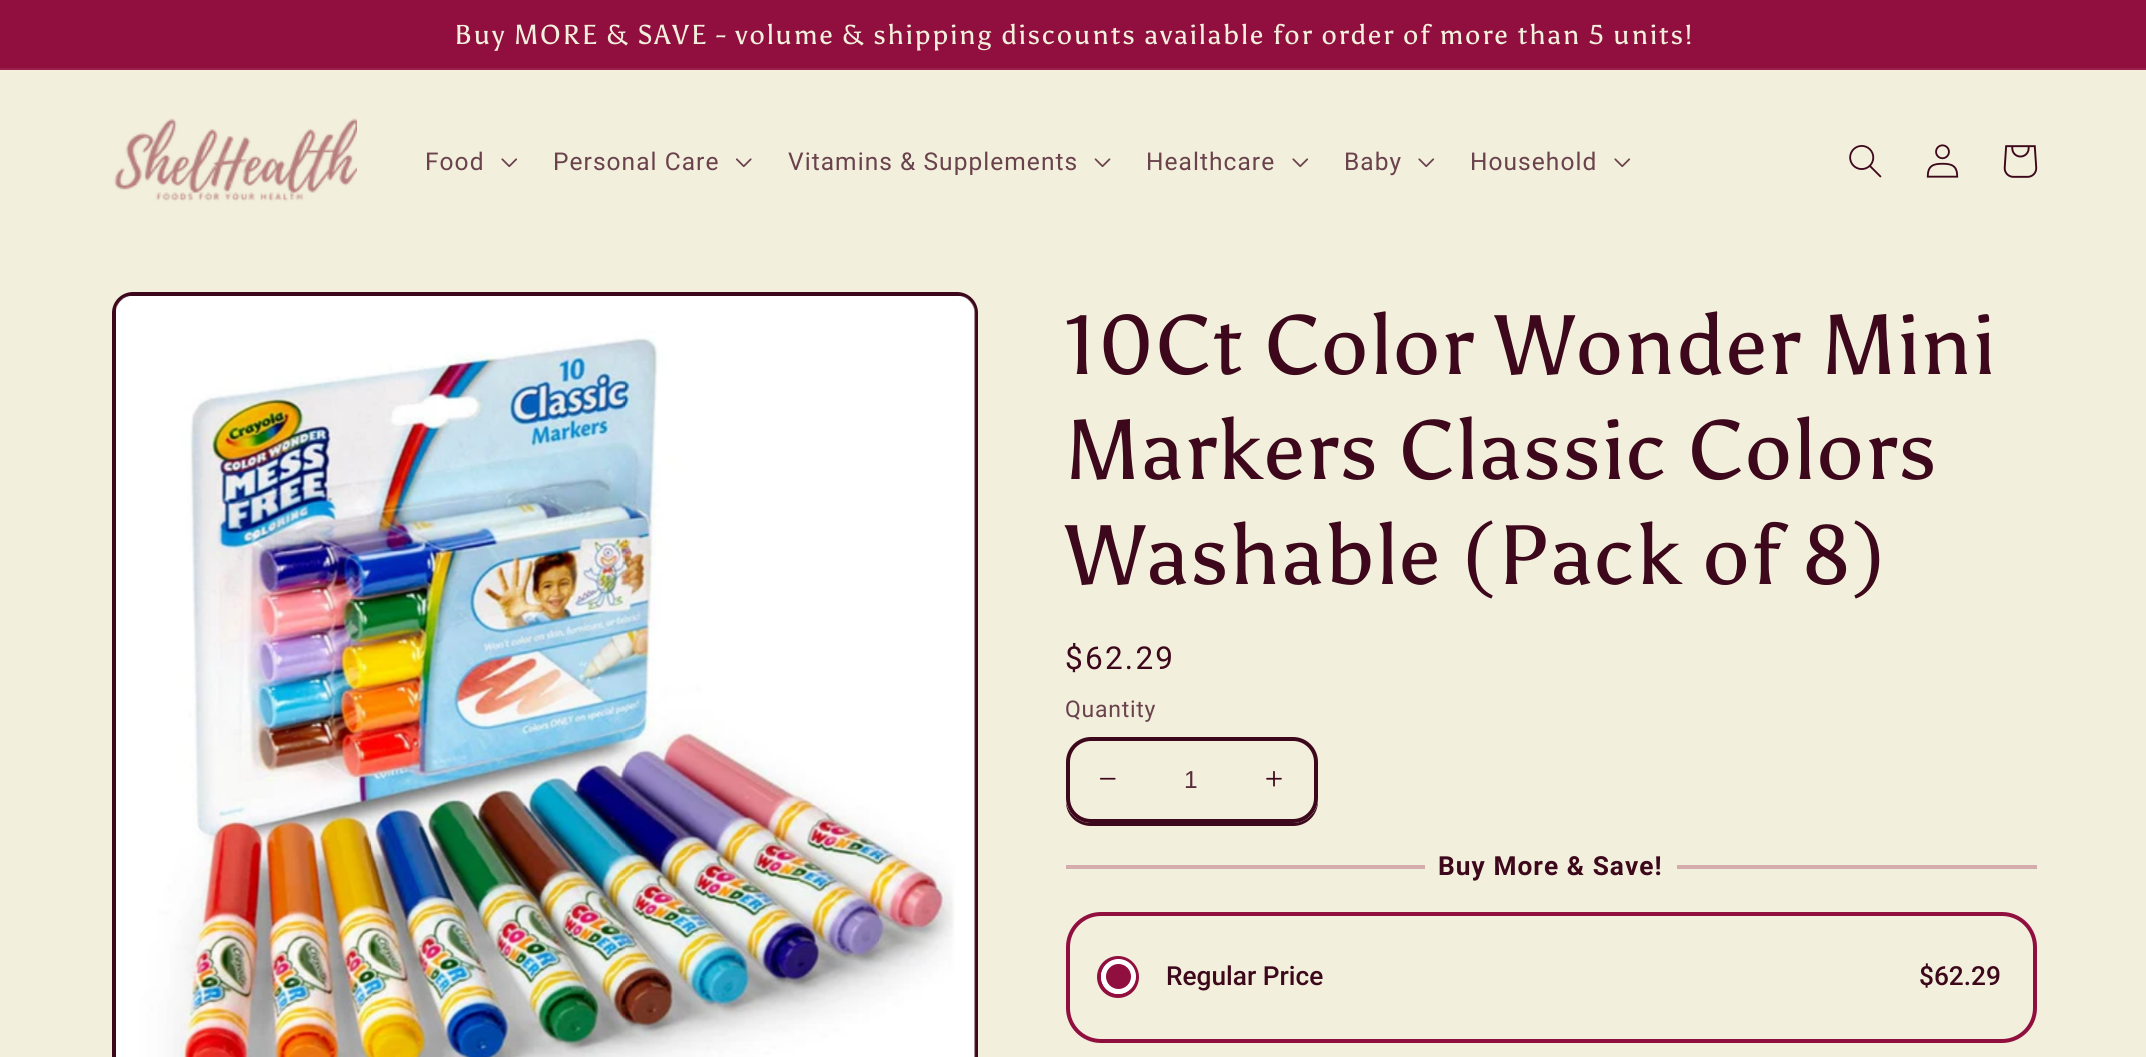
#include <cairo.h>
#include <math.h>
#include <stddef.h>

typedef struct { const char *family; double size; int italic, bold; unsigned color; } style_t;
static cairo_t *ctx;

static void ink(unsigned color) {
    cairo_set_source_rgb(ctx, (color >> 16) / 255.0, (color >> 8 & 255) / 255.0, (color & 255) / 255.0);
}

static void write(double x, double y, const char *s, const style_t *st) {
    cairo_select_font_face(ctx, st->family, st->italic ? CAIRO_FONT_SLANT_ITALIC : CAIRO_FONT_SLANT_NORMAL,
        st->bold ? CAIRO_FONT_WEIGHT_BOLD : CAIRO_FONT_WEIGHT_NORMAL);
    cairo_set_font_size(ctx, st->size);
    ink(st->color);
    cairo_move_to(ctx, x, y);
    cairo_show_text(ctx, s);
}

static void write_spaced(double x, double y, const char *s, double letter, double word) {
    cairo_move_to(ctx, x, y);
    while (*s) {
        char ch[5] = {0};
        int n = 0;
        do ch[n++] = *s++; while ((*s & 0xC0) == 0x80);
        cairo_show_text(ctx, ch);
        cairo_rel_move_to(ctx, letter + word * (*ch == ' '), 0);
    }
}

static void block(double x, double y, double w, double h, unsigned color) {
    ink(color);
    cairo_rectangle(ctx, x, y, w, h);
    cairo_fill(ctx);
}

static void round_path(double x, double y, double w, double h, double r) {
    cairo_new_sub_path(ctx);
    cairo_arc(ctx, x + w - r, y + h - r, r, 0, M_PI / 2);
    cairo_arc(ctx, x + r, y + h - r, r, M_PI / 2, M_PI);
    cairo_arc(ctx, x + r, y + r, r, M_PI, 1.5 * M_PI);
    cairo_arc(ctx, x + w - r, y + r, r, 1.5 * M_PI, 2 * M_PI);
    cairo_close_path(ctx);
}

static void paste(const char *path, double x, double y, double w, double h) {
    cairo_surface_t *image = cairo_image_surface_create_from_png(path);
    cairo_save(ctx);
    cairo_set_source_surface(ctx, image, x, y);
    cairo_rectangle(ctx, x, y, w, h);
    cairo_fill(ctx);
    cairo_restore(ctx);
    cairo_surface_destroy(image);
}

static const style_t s1 = {"Liberation Sans", 24.5, 0, 0, 0x582b38};
static const style_t s2 = {"Roboto Medium", 26.25, 0, 0, 0x3d081b};

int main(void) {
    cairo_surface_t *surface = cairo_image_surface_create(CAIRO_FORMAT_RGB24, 2146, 1057);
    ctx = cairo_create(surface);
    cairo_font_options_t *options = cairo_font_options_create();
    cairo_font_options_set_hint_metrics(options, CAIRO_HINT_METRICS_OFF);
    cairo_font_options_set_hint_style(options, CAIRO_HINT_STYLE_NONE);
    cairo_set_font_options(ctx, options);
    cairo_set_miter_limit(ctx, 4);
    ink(0xf2efdd);
    cairo_paint(ctx);
    block(0, 0, 2146, 68, 0x910f3f);
    block(0, 68, 2146, 2, 0x99214c);
    cairo_select_font_face(ctx, "Asul", CAIRO_FONT_SLANT_NORMAL, CAIRO_FONT_WEIGHT_NORMAL);
    cairo_set_font_size(ctx, 27.3);
    ink(0xf2efdd);
    write_spaced(454, 44, "Buy MORE & SAVE - volume & shipping discounts available for order of more than 5 units!", 1.75, 0);
    paste("pic1.png", 113, 118, 244, 84);
    cairo_select_font_face(ctx, "Roboto", CAIRO_FONT_SLANT_NORMAL, CAIRO_FONT_WEIGHT_NORMAL);
    cairo_set_font_size(ctx, 24.5);
    ink(0x6a424c);
    write_spaced(425, 170, "Food", 1.05, 0);
    paste("pic2.png", 501, 158, 17, 10);
    write_spaced(553, 170, "Personal Care", 1.05, 0);
    paste("pic3.png", 735, 158, 17, 10);
    write_spaced(788, 170, "Vitamins & Supplements", 1.05, 0);
    paste("pic4.png", 1094, 158, 17, 10);
    write_spaced(1146, 170, "Healthcare", 1.05, 0);
    paste("pic2.png", 1292, 158, 17, 10);
    write_spaced(1344, 170, "Baby", 1.05, 0);
    paste("pic2.png", 1418, 158, 17, 10);
    write_spaced(1470, 170, "Household", 1.05, 0);
    paste("pic2.png", 1614, 158, 17, 10);
    paste("pic5.png", 1849, 145, 33, 33);
    paste("pic6.png", 1926, 144, 33, 34);
    paste("pic7.png", 2003, 145, 35, 33);
    round_path(114, 294, 862, 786, 19);
    ink(0x3d081b);
    cairo_set_line_width(ctx, 4);
    cairo_stroke(ctx);
    paste("pic8.png", 116, 296, 860, 761);
    cairo_select_font_face(ctx, "Asul", CAIRO_FONT_SLANT_NORMAL, CAIRO_FONT_WEIGHT_NORMAL);
    cairo_set_font_size(ctx, 84);
    write_spaced(1065, 374, "10Ct Color Wonder Mini", 1.25, 0);
    write_spaced(1065, 479, "Markers Classic Colors", 1.25, 0);
    write_spaced(1065, 584, "Washable (Pack of 8)", 1.25, 0);
    cairo_select_font_face(ctx, "Roboto", CAIRO_FONT_SLANT_NORMAL, CAIRO_FONT_WEIGHT_NORMAL);
    cairo_set_font_size(ctx, 31.5);
    write_spaced(1065, 669, "$62.29", 2.25, 0);
    cairo_set_font_size(ctx, 23);
    ink(0x6a424c);
    write_spaced(1065, 717, "Quantity", 0.75, 0);
    ink(0x3d081b);
    cairo_new_path(ctx);
    cairo_move_to(ctx, 1066, 802);
    cairo_curve_to(ctx, 1066, 815, 1077, 826, 1091, 826);
    cairo_line_to(ctx, 1293, 826);
    cairo_curve_to(ctx, 1307, 826, 1318, 815, 1318, 801);
    cairo_line_to(ctx, 1318, 761);
    cairo_line_to(ctx, 1318, 798);
    cairo_curve_to(ctx, 1318, 812, 1307, 822, 1293, 822);
    cairo_line_to(ctx, 1090, 822);
    cairo_curve_to(ctx, 1078, 822, 1068, 813, 1066, 802);
    cairo_close_path(ctx);
    cairo_fill(ctx);
    ink(0xf2efdd);
    round_path(1066, 737, 252, 86, 25);
    cairo_fill(ctx);
    paste("pic9.png", 1099, 777, 17, 3);
    paste("pic10.png", 1266, 770, 16, 17);
    round_path(1068, 739, 248, 82, 23);
    ink(0x3d081b);
    cairo_stroke(ctx);
    write(1184, 788, "1", &s1);
    block(1066, 865, 359, 4, 0xd5acae);
    cairo_select_font_face(ctx, "Roboto", CAIRO_FONT_SLANT_NORMAL, CAIRO_FONT_WEIGHT_BOLD);
    cairo_set_font_size(ctx, 26.25);
    ink(0x3d081b);
    write_spaced(1438, 875, "Buy More & Save!", 1.05, 0);
    block(1677, 865, 360, 4, 0xd5acae);
    round_path(1068, 914, 967, 127, 33);
    ink(0x910f3f);
    cairo_stroke(ctx);
    cairo_arc(ctx, 1118, 977, 19, 0, 2 * M_PI);
    cairo_stroke(ctx);
    cairo_arc(ctx, 1118.5, 976.5, 15, 0, 2 * M_PI);
    cairo_fill_preserve(ctx);
    ink(0xffffff);
    cairo_set_line_width(ctx, 5);
    cairo_stroke(ctx);
    write(1166, 985, "Regular Price", &s2);
    write(1919, 985, "$62.29", &s2);
    cairo_surface_write_to_png(surface, "screenshot.png");
    cairo_font_options_destroy(options);
    cairo_destroy(ctx);
    cairo_surface_destroy(surface);
    return 0;
}
